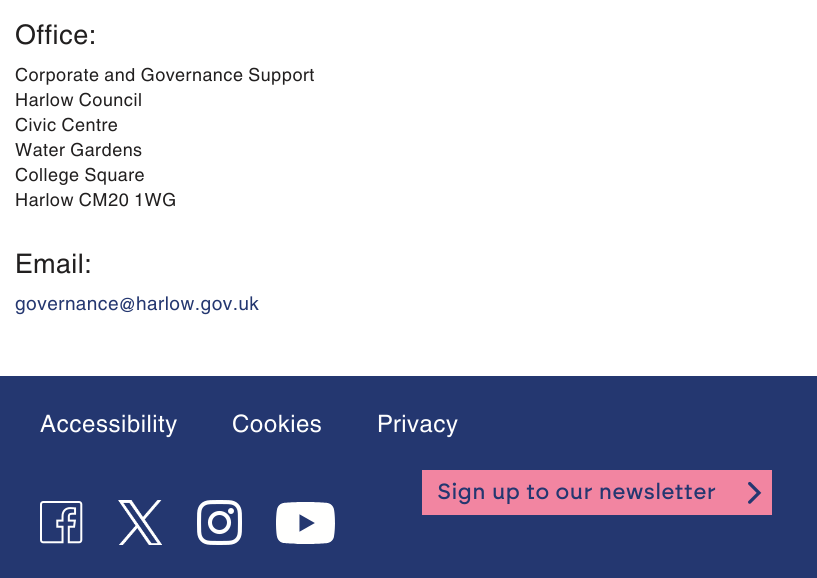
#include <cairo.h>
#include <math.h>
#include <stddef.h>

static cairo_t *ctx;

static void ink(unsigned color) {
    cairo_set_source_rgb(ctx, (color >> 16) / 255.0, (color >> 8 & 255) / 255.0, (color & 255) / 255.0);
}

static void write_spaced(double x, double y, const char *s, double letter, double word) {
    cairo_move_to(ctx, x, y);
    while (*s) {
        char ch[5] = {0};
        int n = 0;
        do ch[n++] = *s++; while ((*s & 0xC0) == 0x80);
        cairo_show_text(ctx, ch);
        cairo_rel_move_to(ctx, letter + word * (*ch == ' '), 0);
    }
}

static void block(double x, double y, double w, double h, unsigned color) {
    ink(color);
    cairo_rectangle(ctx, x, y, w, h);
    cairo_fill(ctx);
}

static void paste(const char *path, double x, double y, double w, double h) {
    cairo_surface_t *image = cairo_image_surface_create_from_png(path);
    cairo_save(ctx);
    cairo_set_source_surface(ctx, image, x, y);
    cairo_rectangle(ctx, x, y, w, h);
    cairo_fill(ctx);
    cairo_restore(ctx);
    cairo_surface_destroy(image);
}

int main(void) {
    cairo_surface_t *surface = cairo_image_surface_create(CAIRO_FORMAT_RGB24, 817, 578);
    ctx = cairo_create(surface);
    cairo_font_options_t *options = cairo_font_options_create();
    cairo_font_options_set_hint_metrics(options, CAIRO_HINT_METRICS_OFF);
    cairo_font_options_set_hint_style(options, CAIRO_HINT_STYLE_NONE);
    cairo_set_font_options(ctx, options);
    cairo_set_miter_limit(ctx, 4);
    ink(0xffffff);
    cairo_paint(ctx);
    cairo_select_font_face(ctx, "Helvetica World", CAIRO_FONT_SLANT_NORMAL, CAIRO_FONT_WEIGHT_NORMAL);
    cairo_set_font_size(ctx, 27);
    ink(0x211f1f);
    write_spaced(15, 44, "Office:", 0.5, 0);
    cairo_set_font_size(ctx, 18);
    write_spaced(15, 81, "Corporate and Governance Support", 0.5, 0);
    write_spaced(15, 106, "Harlow Council", 0.5, 0);
    write_spaced(15, 131, "Civic Centre", 0.5, 0);
    write_spaced(15, 156, "Water Gardens", 0.5, 0);
    write_spaced(15, 181, "College Square", 0.5, 0);
    write_spaced(15, 206, "Harlow CM20 1WG", 0.5, 0);
    cairo_set_font_size(ctx, 27);
    write_spaced(15, 273, "Email:", 0.5, 0);
    cairo_set_font_size(ctx, 19);
    ink(0x243770);
    write_spaced(15, 310, "governance@harlow.gov.uk", 0.5, 0);
    block(0, 376, 817, 202, 0x243770);
    cairo_set_font_size(ctx, 24);
    ink(0xffffff);
    write_spaced(40, 432, "Accessibility", 0.5, 0);
    write_spaced(232, 432, "Cookies", 0.5, 0);
    write_spaced(377, 432, "Privacy", 0.5, 0);
    block(422, 470, 350, 45, 0xf285a1);
    cairo_select_font_face(ctx, "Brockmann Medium", CAIRO_FONT_SLANT_NORMAL, CAIRO_FONT_WEIGHT_NORMAL);
    cairo_set_font_size(ctx, 22);
    ink(0x243770);
    write_spaced(437, 499, "Sign up to our newsletter", 0.5, 0);
    paste("pic1.png", 748, 481, 14, 23);
    paste("pic2.png", 40, 501, 43, 43);
    paste("pic3.png", 118, 500, 44, 45);
    paste("pic4.png", 197, 500, 45, 45);
    paste("pic5.png", 276, 502, 59, 42);
    cairo_surface_write_to_png(surface, "screenshot.png");
    cairo_font_options_destroy(options);
    cairo_destroy(ctx);
    cairo_surface_destroy(surface);
    return 0;
}
